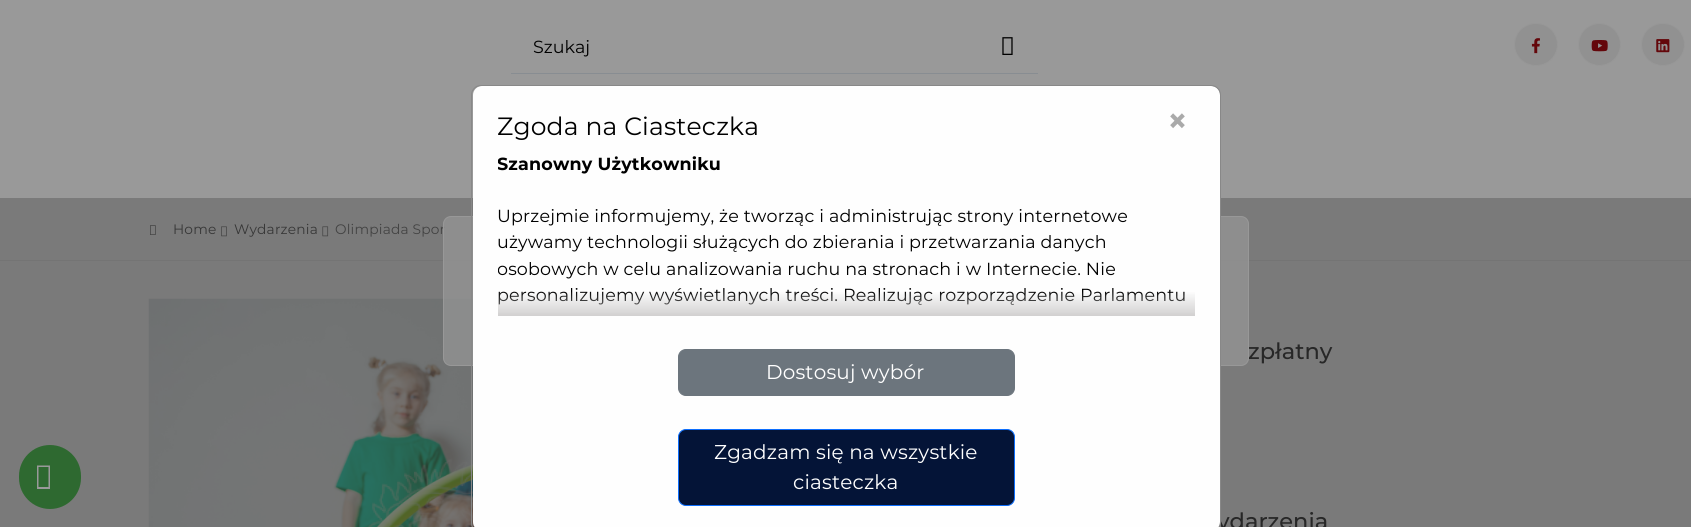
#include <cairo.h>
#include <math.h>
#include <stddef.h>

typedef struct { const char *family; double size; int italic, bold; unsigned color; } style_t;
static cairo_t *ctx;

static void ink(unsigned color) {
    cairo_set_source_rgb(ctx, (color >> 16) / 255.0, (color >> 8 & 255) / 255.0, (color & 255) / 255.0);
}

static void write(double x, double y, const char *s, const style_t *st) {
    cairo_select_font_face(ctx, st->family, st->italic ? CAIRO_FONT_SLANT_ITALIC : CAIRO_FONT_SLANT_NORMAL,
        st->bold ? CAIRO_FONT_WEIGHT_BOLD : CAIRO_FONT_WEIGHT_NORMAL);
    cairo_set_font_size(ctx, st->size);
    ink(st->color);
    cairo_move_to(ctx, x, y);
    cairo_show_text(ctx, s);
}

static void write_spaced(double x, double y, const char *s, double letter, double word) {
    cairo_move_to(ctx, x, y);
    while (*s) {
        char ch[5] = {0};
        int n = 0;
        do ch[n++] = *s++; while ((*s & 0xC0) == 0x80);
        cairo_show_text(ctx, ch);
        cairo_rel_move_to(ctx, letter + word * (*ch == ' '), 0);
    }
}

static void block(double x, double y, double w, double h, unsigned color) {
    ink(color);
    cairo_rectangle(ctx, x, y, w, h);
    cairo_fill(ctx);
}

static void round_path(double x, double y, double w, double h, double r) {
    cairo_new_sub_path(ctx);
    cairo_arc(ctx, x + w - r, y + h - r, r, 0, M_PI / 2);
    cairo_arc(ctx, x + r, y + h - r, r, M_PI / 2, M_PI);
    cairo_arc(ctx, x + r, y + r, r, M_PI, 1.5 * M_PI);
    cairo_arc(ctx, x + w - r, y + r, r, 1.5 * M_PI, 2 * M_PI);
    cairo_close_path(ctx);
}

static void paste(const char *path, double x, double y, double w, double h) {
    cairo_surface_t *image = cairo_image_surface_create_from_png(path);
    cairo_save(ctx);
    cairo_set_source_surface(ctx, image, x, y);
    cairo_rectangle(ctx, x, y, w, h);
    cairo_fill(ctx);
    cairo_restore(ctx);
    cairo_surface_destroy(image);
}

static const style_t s1 = {"Montserrat", 17.5, 0, 0, 0x000000};
static const style_t s2 = {"Montserrat Medium", 22.5, 0, 0, 0x272727};

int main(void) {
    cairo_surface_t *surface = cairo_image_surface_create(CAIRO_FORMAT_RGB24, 1691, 527);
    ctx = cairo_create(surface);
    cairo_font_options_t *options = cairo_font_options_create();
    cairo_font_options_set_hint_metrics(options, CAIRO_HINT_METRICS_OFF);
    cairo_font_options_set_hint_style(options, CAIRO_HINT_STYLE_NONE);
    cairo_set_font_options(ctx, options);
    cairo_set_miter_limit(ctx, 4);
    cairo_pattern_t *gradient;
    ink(0x999999);
    cairo_paint(ctx);
    block(0, 198, 1691, 329, 0x7a7a7a);
    block(511, 73, 527, 1, 0x888d92);
    write(533, 53, "Szukaj", &s1);
    paste("pic1.png", 1002, 37, 11, 18);
    ink(0x919191);
    round_path(1514.5, 23.5, 43, 42, 21);
    cairo_fill_preserve(ctx);
    ink(0x979797);
    cairo_set_line_width(ctx, 1);
    cairo_stroke(ctx);
    paste("pic2.png", 1531, 38, 9, 16);
    ink(0x919191);
    cairo_arc(ctx, 1599.5, 44.5, 21, 0, 2 * M_PI);
    cairo_fill_preserve(ctx);
    ink(0x979797);
    cairo_stroke(ctx);
    paste("pic3.png", 1591, 40, 17, 12);
    ink(0x919191);
    round_path(1641.5, 23.5, 43, 42, 21);
    cairo_fill_preserve(ctx);
    ink(0x979797);
    cairo_stroke(ctx);
    paste("pic4.png", 1656, 39, 14, 14);
    block(0, 260, 1691, 1, 0x747474);
    cairo_set_font_size(ctx, 13.75);
    ink(0x434343);
    write_spaced(335, 234, "Olimpiada Spor", 0.18, 0);
    paste("pic8.png", 148, 298, 327, 229);
    write(1248, 359, "zpłatny", &s2);
    cairo_set_source_rgba(ctx, 0.596, 0.596, 0.596, 0.7);
    round_path(443.5, 216.5, 805, 149, 7.5);
    cairo_fill_preserve(ctx);
    ink(0x989898);
    cairo_stroke(ctx);
    write(1217, 529, "ydarzenia", &s2);
    ink(0xfefefe);
    round_path(473, 86, 747, 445, 9);
    cairo_fill(ctx);
    round_path(471.5, 85.5, 749, 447, 9.5);
    ink(0x888888);
    cairo_stroke(ctx);
    cairo_select_font_face(ctx, "Montserrat", CAIRO_FONT_SLANT_NORMAL, CAIRO_FONT_WEIGHT_NORMAL);
    cairo_set_font_size(ctx, 25);
    ink(0x000000);
    write_spaced(497, 135, "Zgoda na Ciasteczka", 0.18, 0);
    cairo_select_font_face(ctx, "Montserrat", CAIRO_FONT_SLANT_NORMAL, CAIRO_FONT_WEIGHT_BOLD);
    cairo_set_font_size(ctx, 35);
    ink(0xaaaaaa);
    write_spaced(1167, 133, "×", 0.18, 0);
    cairo_save(ctx);
    cairo_rectangle(ctx, 498, 151, 697, 165);
    cairo_clip(ctx);
    cairo_set_font_size(ctx, 17.5);
    ink(0x000000);
    write_spaced(497, 170, "Szanowny Użytkowniku", 0.18, 0);
    cairo_restore(ctx);
    cairo_select_font_face(ctx, "Montserrat", CAIRO_FONT_SLANT_NORMAL, CAIRO_FONT_WEIGHT_NORMAL);
    cairo_set_font_size(ctx, 17.5);
    ink(0x000000);
    write_spaced(497, 222, "Uprzejmie informujemy, że tworząc i administrując strony internetowe", 0.18, 0);
    write_spaced(497, 248, "używamy technologii służących do zbierania i przetwarzania danych", 0.18, 0);
    cairo_save(ctx);
    cairo_rectangle(ctx, 498, 151, 697, 165);
    cairo_clip(ctx);
    write_spaced(497, 275, "osobowych w celu analizowania ruchu na stronach i w Internecie. Nie", 0.18, 0);
    cairo_restore(ctx);
    write_spaced(497, 301, "personalizujemy wyświetlanych treści. Realizując rozporządzenie Parlamentu", 0.18, 0);
    gradient = cairo_pattern_create_linear(846, 316, 846, 291);
    cairo_pattern_add_color_stop_rgba(gradient, 0, 0.776, 0.769, 0.769, 0.8);
    cairo_pattern_add_color_stop_rgba(gradient, 1, 0.776, 0.769, 0.769, 0);
    cairo_set_source(ctx, gradient);
    cairo_pattern_destroy(gradient);
    cairo_rectangle(ctx, 498, 292, 697, 24);
    cairo_fill(ctx);
    ink(0x6c757d);
    round_path(678.5, 349.5, 336, 46, 7.5);
    cairo_fill_preserve(ctx);
    cairo_stroke(ctx);
    cairo_set_font_size(ctx, 20);
    ink(0xffffff);
    write_spaced(766, 379, "Dostosuj wybór", 0.18, 0);
    ink(0x041437);
    round_path(678.5, 429.5, 336, 76, 7.5);
    cairo_fill_preserve(ctx);
    ink(0x0d6efd);
    cairo_stroke(ctx);
    ink(0xffffff);
    write_spaced(714, 459, "Zgadzam się na wszystkie", 0.18, 0);
    write_spaced(793, 489, "ciasteczka", 0.18, 0);
    ink(0x2e6930);
    round_path(19, 445, 62, 64, 31);
    cairo_fill(ctx);
    ink(0x999999);
    cairo_new_path(ctx);
    cairo_move_to(ctx, 37, 489);
    cairo_line_to(ctx, 37, 465.5);
    cairo_line_to(ctx, 50, 465.5);
    cairo_line_to(ctx, 50, 489);
    cairo_close_path(ctx);
    cairo_move_to(ctx, 38.5, 487);
    cairo_line_to(ctx, 48.5, 487);
    cairo_line_to(ctx, 48.5, 467);
    cairo_line_to(ctx, 38.5, 467);
    cairo_close_path(ctx);
    cairo_fill(ctx);
    paste("pic5.png", 150, 225, 6, 10);
    cairo_set_font_size(ctx, 13.75);
    ink(0x373737);
    write_spaced(173, 234, "Home", 0.18, 0);
    paste("pic6.png", 221, 226, 6, 11);
    write_spaced(234, 234, "Wydarzenia", 0.18, 0);
    paste("pic7.png", 322, 226, 7, 11);
    cairo_surface_write_to_png(surface, "screenshot.png");
    cairo_font_options_destroy(options);
    cairo_destroy(ctx);
    cairo_surface_destroy(surface);
    return 0;
}
